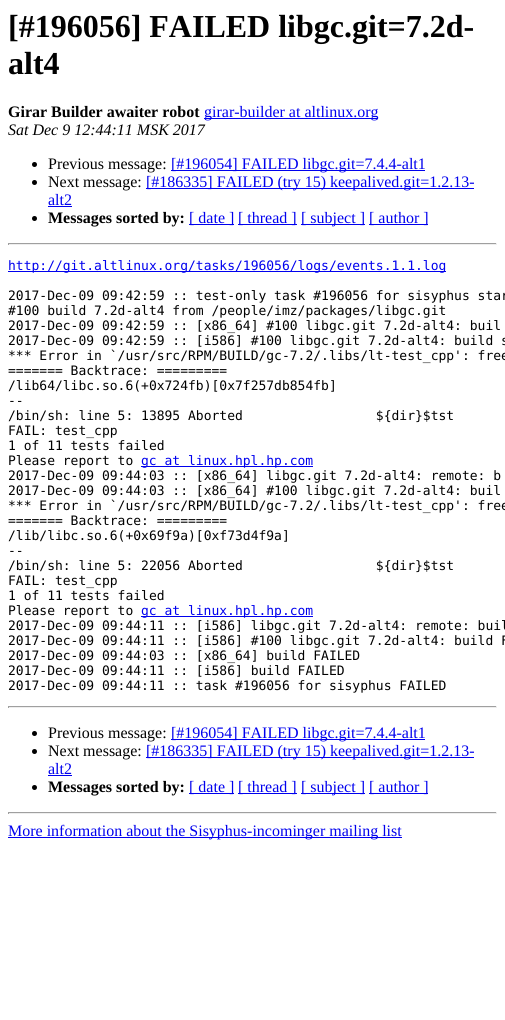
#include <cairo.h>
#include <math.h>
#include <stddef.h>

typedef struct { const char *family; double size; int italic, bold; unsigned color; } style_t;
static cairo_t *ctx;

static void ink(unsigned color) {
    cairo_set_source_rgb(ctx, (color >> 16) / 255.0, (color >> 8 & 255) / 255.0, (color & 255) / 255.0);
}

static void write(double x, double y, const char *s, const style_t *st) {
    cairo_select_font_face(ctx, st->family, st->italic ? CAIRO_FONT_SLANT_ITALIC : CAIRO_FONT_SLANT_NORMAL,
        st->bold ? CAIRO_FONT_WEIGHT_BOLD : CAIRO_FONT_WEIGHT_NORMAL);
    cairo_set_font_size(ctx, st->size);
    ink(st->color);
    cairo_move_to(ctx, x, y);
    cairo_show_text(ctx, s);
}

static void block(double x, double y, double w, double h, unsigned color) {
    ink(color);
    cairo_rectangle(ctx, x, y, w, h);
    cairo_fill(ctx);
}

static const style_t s1 = {"Liberation Serif", 32, 0, 1, 0x000000};
static const style_t s2 = {"Liberation Serif", 16, 0, 1, 0x000000};
static const style_t s3 = {"Liberation Serif", 16, 0, 0, 0x0000ee};
static const style_t s4 = {"Liberation Serif", 16, 1, 0, 0x000000};
static const style_t s5 = {"Liberation Serif", 16, 0, 0, 0x000000};
static const style_t s6 = {"DejaVu Sans Mono", 13, 0, 0, 0x0000ee};
static const style_t s7 = {"DejaVu Sans Mono", 13, 0, 0, 0x000000};

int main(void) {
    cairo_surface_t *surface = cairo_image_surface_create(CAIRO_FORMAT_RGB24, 505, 1020);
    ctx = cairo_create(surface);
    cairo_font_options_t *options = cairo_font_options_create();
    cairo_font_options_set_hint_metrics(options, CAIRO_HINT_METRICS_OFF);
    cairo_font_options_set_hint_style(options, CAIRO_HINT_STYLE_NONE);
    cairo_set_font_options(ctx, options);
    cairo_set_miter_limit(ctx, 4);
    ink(0xffffff);
    cairo_paint(ctx);
    write(8, 37, "[#196056] FAILED libgc.git=7.2d-", &s1);
    write(8, 74, "alt4", &s1);
    write(8, 117, "Girar Builder awaiter robot", &s2);
    block(204, 118, 174, 1, 0x0000ee);
    write(204, 117, "girar-builder at altlinux.org", &s3);
    write(8, 135, "Sat Dec 9 12:44:11 MSK 2017", &s4);
    cairo_new_path(ctx);
    cairo_arc(ctx, 34.5, 164.5, 2.5, 0, 2 * M_PI);
    cairo_fill(ctx);
    write(48, 169, "Previous message:", &s5);
    block(171, 170, 254, 1, 0x0000ee);
    write(171, 169, "[#196054] FAILED libgc.git=7.4.4-alt1", &s3);
    ink(0x000000);
    cairo_new_path(ctx);
    cairo_arc(ctx, 34.5, 182.5, 2.5, 0, 2 * M_PI);
    cairo_fill(ctx);
    write(48, 187, "Next message:", &s5);
    block(146, 188, 328, 1, 0x0000ee);
    write(146, 187, "[#186335] FAILED (try 15) keepalived.git=1.2.13-", &s3);
    write(48, 205, "alt2", &s3);
    block(48, 206, 24, 1, 0x0000ee);
    ink(0x000000);
    cairo_new_path(ctx);
    cairo_arc(ctx, 34.5, 218.5, 2.5, 0, 2 * M_PI);
    cairo_fill(ctx);
    write(48, 223, "Messages sorted by:", &s2);
    block(189, 224, 45, 1, 0x0000ee);
    write(189, 223, "[ date ]", &s3);
    block(238, 224, 59, 1, 0x0000ee);
    write(238, 223, "[ thread ]", &s3);
    block(301, 224, 64, 1, 0x0000ee);
    write(301, 223, "[ subject ]", &s3);
    block(369, 224, 59, 1, 0x0000ee);
    write(369, 223, "[ author ]", &s3);
    block(8, 243, 489, 1, 0x9f9f9f);
    block(496, 243, 1, 2, 0xeeeeee);
    block(8, 244, 489, 1, 0xeeeeee);
    block(8, 243, 1, 2, 0x9f9f9f);
    block(8, 271, 438, 1, 0x0000ee);
    write(8, 270, "http://git.altlinux.org/tasks/196056/logs/events.1.1.log", &s6);
    write(8, 300, "2017-Dec-09 09:42:59 :: test-only task #196056 for sisyphus star", &s7);
    write(8, 315, "#100 build 7.2d-alt4 from /people/imz/packages/libgc.git", &s7);
    write(8, 330, "2017-Dec-09 09:42:59 :: [x86_64] #100 libgc.git 7.2d-alt4: buil", &s7);
    write(8, 345, "2017-Dec-09 09:42:59 :: [i586] #100 libgc.git 7.2d-alt4: build s", &s7);
    write(8, 360, "*** Error in `/usr/src/RPM/BUILD/gc-7.2/.libs/lt-test_cpp': free", &s7);
    write(8, 375, "======= Backtrace: =========", &s7);
    write(8, 390, "/lib64/libc.so.6(+0x724fb)[0x7f257db854fb]", &s7);
    write(8, 405, "--", &s7);
    write(8, 420, "/bin/sh: line 5: 13895 Aborted                 ${dir}$tst", &s7);
    write(8, 435, "FAIL: test_cpp", &s7);
    write(8, 450, "1 of 11 tests failed", &s7);
    write(8, 465, "Please report to", &s7);
    block(141, 466, 172, 1, 0x0000ee);
    write(141, 465, "gc at linux.hpl.hp.com", &s6);
    write(8, 480, "2017-Dec-09 09:44:03 :: [x86_64] libgc.git 7.2d-alt4: remote: b", &s7);
    write(8, 495, "2017-Dec-09 09:44:03 :: [x86_64] #100 libgc.git 7.2d-alt4: buil", &s7);
    write(8, 510, "*** Error in `/usr/src/RPM/BUILD/gc-7.2/.libs/lt-test_cpp': free", &s7);
    write(8, 525, "======= Backtrace: =========", &s7);
    write(8, 540, "/lib/libc.so.6(+0x69f9a)[0xf73d4f9a]", &s7);
    write(8, 555, "--", &s7);
    write(8, 570, "/bin/sh: line 5: 22056 Aborted                 ${dir}$tst", &s7);
    write(8, 585, "FAIL: test_cpp", &s7);
    write(8, 600, "1 of 11 tests failed", &s7);
    write(8, 615, "Please report to", &s7);
    block(141, 616, 172, 1, 0x0000ee);
    write(141, 615, "gc at linux.hpl.hp.com", &s6);
    write(8, 630, "2017-Dec-09 09:44:11 :: [i586] libgc.git 7.2d-alt4: remote: buil", &s7);
    write(8, 645, "2017-Dec-09 09:44:11 :: [i586] #100 libgc.git 7.2d-alt4: build F", &s7);
    write(8, 660, "2017-Dec-09 09:44:03 :: [x86_64] build FAILED", &s7);
    write(8, 675, "2017-Dec-09 09:44:11 :: [i586] build FAILED", &s7);
    write(8, 690, "2017-Dec-09 09:44:11 :: task #196056 for sisyphus FAILED", &s7);
    block(8, 706, 489, 1, 0x9f9f9f);
    block(496, 706, 1, 2, 0xeeeeee);
    block(8, 707, 489, 1, 0xeeeeee);
    block(8, 706, 1, 2, 0x9f9f9f);
    ink(0x000000);
    cairo_new_path(ctx);
    cairo_arc(ctx, 34.5, 733.5, 2.5, 0, 2 * M_PI);
    cairo_fill(ctx);
    write(48, 738, "Previous message:", &s5);
    block(171, 739, 254, 1, 0x0000ee);
    write(171, 738, "[#196054] FAILED libgc.git=7.4.4-alt1", &s3);
    ink(0x000000);
    cairo_new_path(ctx);
    cairo_arc(ctx, 34.5, 751.5, 2.5, 0, 2 * M_PI);
    cairo_fill(ctx);
    write(48, 756, "Next message:", &s5);
    block(146, 757, 328, 1, 0x0000ee);
    write(146, 756, "[#186335] FAILED (try 15) keepalived.git=1.2.13-", &s3);
    write(48, 774, "alt2", &s3);
    block(48, 775, 24, 1, 0x0000ee);
    ink(0x000000);
    cairo_new_path(ctx);
    cairo_arc(ctx, 34.5, 787.5, 2.5, 0, 2 * M_PI);
    cairo_fill(ctx);
    write(48, 792, "Messages sorted by:", &s2);
    block(189, 793, 45, 1, 0x0000ee);
    write(189, 792, "[ date ]", &s3);
    block(238, 793, 59, 1, 0x0000ee);
    write(238, 792, "[ thread ]", &s3);
    block(301, 793, 64, 1, 0x0000ee);
    write(301, 792, "[ subject ]", &s3);
    block(369, 793, 59, 1, 0x0000ee);
    write(369, 792, "[ author ]", &s3);
    block(8, 812, 489, 1, 0x9f9f9f);
    block(496, 812, 1, 2, 0xeeeeee);
    block(8, 813, 489, 1, 0xeeeeee);
    block(8, 812, 1, 2, 0x9f9f9f);
    block(8, 837, 394, 1, 0x0000ee);
    write(8, 836, "More information about the Sisyphus-incominger mailing list", &s3);
    cairo_surface_write_to_png(surface, "screenshot.png");
    cairo_font_options_destroy(options);
    cairo_destroy(ctx);
    cairo_surface_destroy(surface);
    return 0;
}
